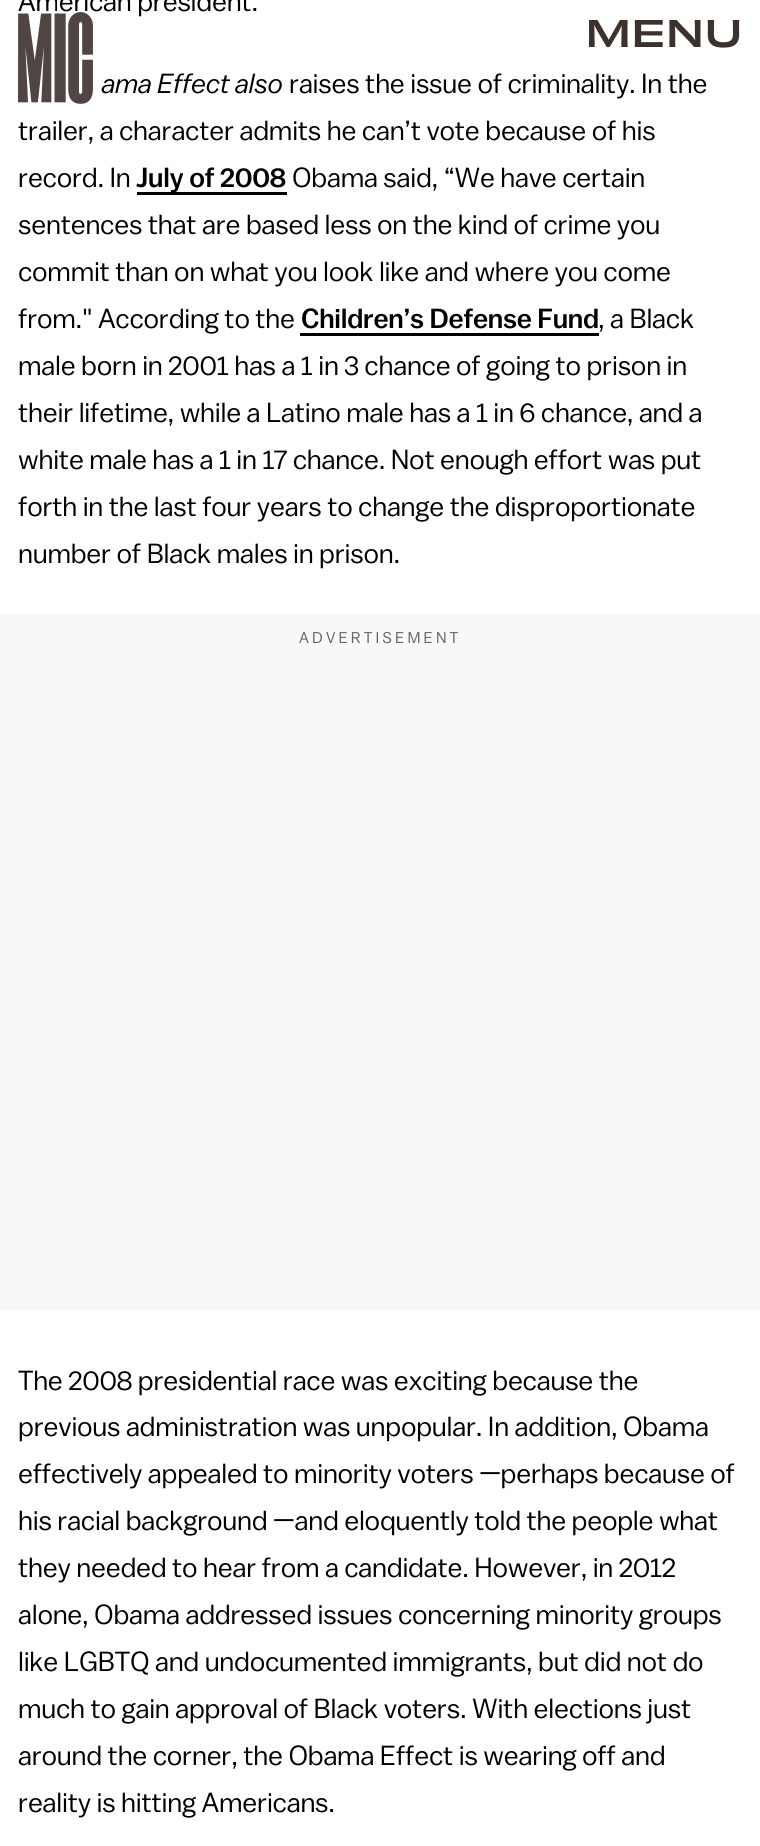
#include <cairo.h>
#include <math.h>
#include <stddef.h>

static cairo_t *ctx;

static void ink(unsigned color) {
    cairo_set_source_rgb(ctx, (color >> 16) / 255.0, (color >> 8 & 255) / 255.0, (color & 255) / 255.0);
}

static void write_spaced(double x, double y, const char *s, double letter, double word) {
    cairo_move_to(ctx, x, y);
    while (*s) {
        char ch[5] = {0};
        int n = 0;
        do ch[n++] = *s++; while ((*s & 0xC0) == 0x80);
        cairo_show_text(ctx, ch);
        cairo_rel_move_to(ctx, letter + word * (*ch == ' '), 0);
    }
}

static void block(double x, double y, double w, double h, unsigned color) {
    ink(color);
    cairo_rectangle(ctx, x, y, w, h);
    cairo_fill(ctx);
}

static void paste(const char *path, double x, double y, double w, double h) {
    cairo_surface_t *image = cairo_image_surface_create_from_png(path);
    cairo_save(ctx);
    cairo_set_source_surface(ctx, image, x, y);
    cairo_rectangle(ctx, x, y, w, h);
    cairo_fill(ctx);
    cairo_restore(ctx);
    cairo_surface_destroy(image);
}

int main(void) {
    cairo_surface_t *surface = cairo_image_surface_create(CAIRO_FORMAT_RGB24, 760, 1846);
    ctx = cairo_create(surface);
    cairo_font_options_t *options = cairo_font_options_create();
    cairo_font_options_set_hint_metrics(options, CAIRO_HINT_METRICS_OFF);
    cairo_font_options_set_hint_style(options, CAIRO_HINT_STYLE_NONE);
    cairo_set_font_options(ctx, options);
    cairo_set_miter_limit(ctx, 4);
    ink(0xffffff);
    cairo_paint(ctx);
    cairo_select_font_face(ctx, "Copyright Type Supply", CAIRO_FONT_SLANT_NORMAL, CAIRO_FONT_WEIGHT_NORMAL);
    cairo_set_font_size(ctx, 27.6);
    ink(0x000000);
    write_spaced(18, 11, "American president.", -0.25, 0);
    cairo_select_font_face(ctx, "Copyright Type Supply", CAIRO_FONT_SLANT_ITALIC, CAIRO_FONT_WEIGHT_NORMAL);
    write_spaced(102, 93, "ama Effect also", -0.25, 0);
    cairo_select_font_face(ctx, "Copyright Type Supply", CAIRO_FONT_SLANT_NORMAL, CAIRO_FONT_WEIGHT_NORMAL);
    write_spaced(289, 93, "raises the issue of criminality. In the", -0.25, 0);
    write_spaced(18, 140, "trailer, a character admits he can’t vote because of his", -0.25, 0);
    write_spaced(18, 187, "record. In", -0.25, 0);
    block(137, 192, 150, 3, 0x000000);
    cairo_select_font_face(ctx, "Copyright Type Supply Medium", CAIRO_FONT_SLANT_NORMAL, CAIRO_FONT_WEIGHT_NORMAL);
    write_spaced(136, 187, "July of 2008", -0.25, 0);
    cairo_select_font_face(ctx, "Copyright Type Supply", CAIRO_FONT_SLANT_NORMAL, CAIRO_FONT_WEIGHT_NORMAL);
    write_spaced(292, 187, "Obama said, “We have certain", -0.25, 0);
    write_spaced(18, 234, "sentences that are based less on the kind of crime you", -0.25, 0);
    write_spaced(18, 281, "commit than on what you look like and where you come", -0.25, 0);
    write_spaced(18, 328, "from.\" According to the", -0.25, 0);
    cairo_select_font_face(ctx, "Copyright Type Supply Medium", CAIRO_FONT_SLANT_NORMAL, CAIRO_FONT_WEIGHT_NORMAL);
    write_spaced(301, 328, "Children’s Defense Fund", -0.25, 0);
    block(300, 333, 299, 3, 0x000000);
    cairo_select_font_face(ctx, "Copyright Type Supply", CAIRO_FONT_SLANT_NORMAL, CAIRO_FONT_WEIGHT_NORMAL);
    write_spaced(598, 328, ", a Black", -0.25, 0);
    write_spaced(18, 375, "male born in 2001 has a 1 in 3 chance of going to prison in", -0.25, 0);
    write_spaced(18, 422, "their lifetime, while a Latino male has a 1 in 6 chance, and a", -0.25, 0);
    write_spaced(18, 469, "white male has a 1 in 17 chance. Not enough effort was put", -0.25, 0);
    write_spaced(18, 516, "forth in the last four years to change the disproportionate", -0.25, 0);
    write_spaced(18, 563, "number of Black males in prison.", -0.25, 0);
    block(0, 614, 760, 696, 0xf8f8f8);
    cairo_set_font_size(ctx, 15.6);
    ink(0x636363);
    write_spaced(299, 643, "ADVERTISEMENT", 3.1, 0);
    cairo_set_font_size(ctx, 27.6);
    ink(0x000000);
    write_spaced(18, 1390, "The 2008 presidential race was exciting because the", -0.25, 0);
    write_spaced(18, 1436, "previous administration was unpopular. In addition, Obama", -0.25, 0);
    write_spaced(18, 1483, "effectively appealed to minority voters —perhaps because of", -0.25, 0);
    write_spaced(18, 1530, "his racial background —and eloquently told the people what", -0.25, 0);
    write_spaced(18, 1577, "they needed to hear from a candidate. However, in 2012", -0.25, 0);
    write_spaced(18, 1624, "alone, Obama addressed issues concerning minority groups", -0.25, 0);
    write_spaced(18, 1671, "like LGBTQ and undocumented immigrants, but did not do", -0.25, 0);
    write_spaced(18, 1718, "much to gain approval of Black voters. With elections just", -0.25, 0);
    write_spaced(18, 1765, "around the corner, the Obama Effect is wearing off and", -0.25, 0);
    write_spaced(18, 1812, "reality is hitting Americans.", -0.25, 0);
    paste("pic1.png", 18, 12, 75, 92);
    cairo_select_font_face(ctx, "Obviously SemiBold", CAIRO_FONT_SLANT_NORMAL, CAIRO_FONT_WEIGHT_NORMAL);
    cairo_set_font_size(ctx, 36);
    ink(0x3d312e);
    write_spaced(585, 47, "MENU", -0.5, 0);
    cairo_surface_write_to_png(surface, "screenshot.png");
    cairo_font_options_destroy(options);
    cairo_destroy(ctx);
    cairo_surface_destroy(surface);
    return 0;
}
